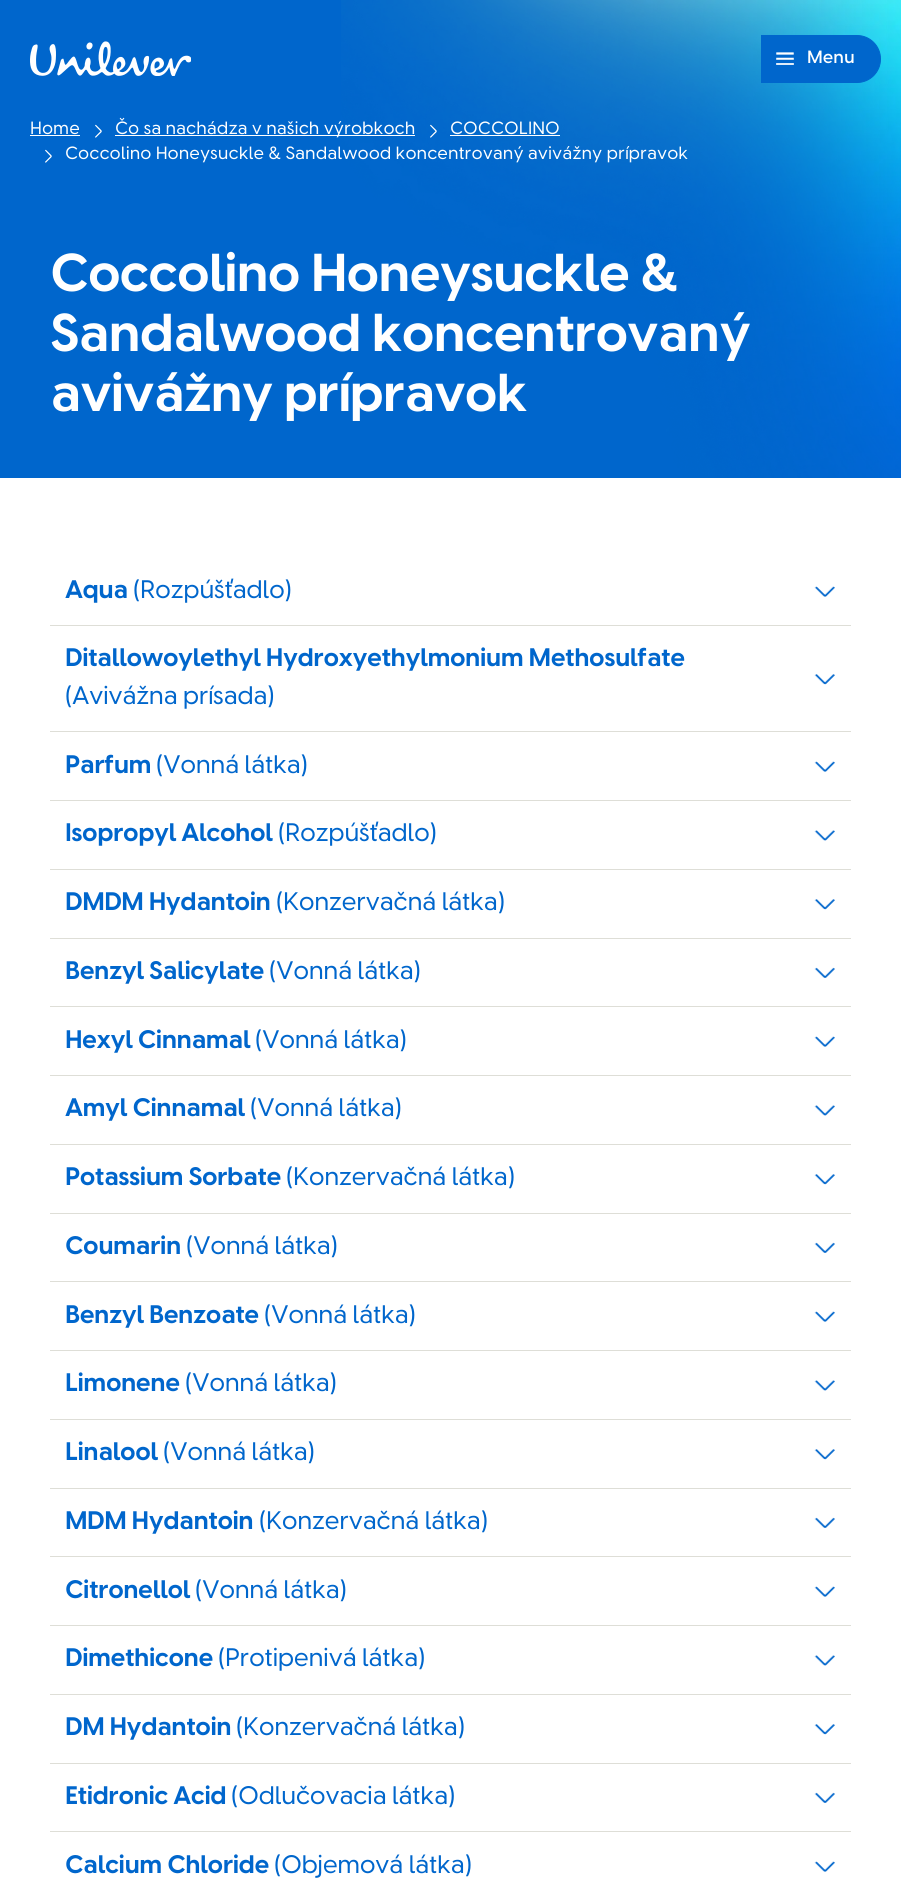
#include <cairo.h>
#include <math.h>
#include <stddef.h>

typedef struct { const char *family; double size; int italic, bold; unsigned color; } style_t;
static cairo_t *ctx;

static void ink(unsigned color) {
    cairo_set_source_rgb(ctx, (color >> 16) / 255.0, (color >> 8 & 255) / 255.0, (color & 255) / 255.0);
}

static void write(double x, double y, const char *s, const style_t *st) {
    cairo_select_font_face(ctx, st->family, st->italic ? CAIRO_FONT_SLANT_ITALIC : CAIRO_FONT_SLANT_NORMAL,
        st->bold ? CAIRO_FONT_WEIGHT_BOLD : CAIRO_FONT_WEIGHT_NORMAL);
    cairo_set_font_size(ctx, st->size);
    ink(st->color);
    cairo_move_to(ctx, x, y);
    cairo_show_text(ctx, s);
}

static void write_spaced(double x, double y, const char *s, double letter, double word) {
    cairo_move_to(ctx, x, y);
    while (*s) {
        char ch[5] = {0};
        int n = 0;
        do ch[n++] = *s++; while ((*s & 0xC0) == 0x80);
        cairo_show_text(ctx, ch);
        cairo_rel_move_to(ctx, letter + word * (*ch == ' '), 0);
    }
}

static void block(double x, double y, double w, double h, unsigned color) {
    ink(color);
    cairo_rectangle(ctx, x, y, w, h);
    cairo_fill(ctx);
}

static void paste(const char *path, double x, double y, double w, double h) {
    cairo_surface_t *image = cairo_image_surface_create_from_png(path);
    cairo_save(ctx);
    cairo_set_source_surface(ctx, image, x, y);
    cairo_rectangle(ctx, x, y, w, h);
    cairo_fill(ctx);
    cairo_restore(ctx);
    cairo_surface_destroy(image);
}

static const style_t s1 = {"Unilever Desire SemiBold", 17.5, 0, 0, 0xffffff};
static const style_t s2 = {"Unilever Desire", 17.5, 0, 0, 0xffffff};

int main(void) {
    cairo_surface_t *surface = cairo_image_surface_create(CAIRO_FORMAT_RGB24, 901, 1878);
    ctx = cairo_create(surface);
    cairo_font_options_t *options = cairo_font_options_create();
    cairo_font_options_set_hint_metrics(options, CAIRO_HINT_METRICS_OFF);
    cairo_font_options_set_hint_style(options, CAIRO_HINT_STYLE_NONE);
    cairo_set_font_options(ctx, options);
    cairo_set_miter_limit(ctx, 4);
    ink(0x0066cc);
    cairo_paint(ctx);
    paste("pic1.png", 341, 0, 560, 478);
    paste("pic2.png", 30, 41, 161, 35);
    ink(0x0066cc);
    cairo_new_path(ctx);
    cairo_move_to(ctx, 761.5, 35.5);
    cairo_line_to(ctx, 857, 35.5);
    cairo_curve_to(ctx, 870, 35.5, 880.5, 46, 880.5, 59);
    cairo_curve_to(ctx, 880.5, 72, 870, 82.5, 857, 82.5);
    cairo_line_to(ctx, 761.5, 82.5);
    cairo_close_path(ctx);
    cairo_fill_preserve(ctx);
    cairo_set_line_width(ctx, 1);
    cairo_stroke(ctx);
    paste("pic3.png", 776, 52, 18, 13);
    write(807, 63, "Menu", &s1);
    write(30, 134, "Home", &s2);
    block(30, 135, 50, 1, 0xffffff);
    paste("pic4.png", 95, 124, 7, 14);
    block(115, 135, 300, 1, 0xffffff);
    write(115, 134, "Čo sa nachádza v našich výrobkoch", &s2);
    paste("pic5.png", 430, 124, 7, 14);
    write(450, 134, "COCCOLINO", &s2);
    block(450, 135, 110, 1, 0xffffff);
    paste("pic4.png", 45, 149, 7, 14);
    write(65, 159, "Coccolino Honeysuckle & Sandalwood koncentrovaný avivážny prípravok", &s2);
    cairo_select_font_face(ctx, "Unilever Desire", CAIRO_FONT_SLANT_NORMAL, CAIRO_FONT_WEIGHT_BOLD);
    cairo_set_font_size(ctx, 52.5);
    write_spaced(50, 291, "Coccolino Honeysuckle &", -1.05, 0);
    write_spaced(50, 351, "Sandalwood koncentrovaný", -1.05, 0);
    write_spaced(50, 411, "avivážny prípravok", -1.05, 0);
    block(0, 478, 901, 1400, 0xffffff);
    cairo_set_font_size(ctx, 25);
    ink(0x0066cc);
    write_spaced(65, 598, "Aqua", -0.5, 0);
    cairo_select_font_face(ctx, "Unilever Desire", CAIRO_FONT_SLANT_NORMAL, CAIRO_FONT_WEIGHT_NORMAL);
    write_spaced(133, 598, "(Rozpúšťadlo)", -0.5, 0);
    paste("pic6.png", 814, 586, 21, 11);
    block(50, 625, 801, 1, 0xdeded7);
    cairo_select_font_face(ctx, "Unilever Desire", CAIRO_FONT_SLANT_NORMAL, CAIRO_FONT_WEIGHT_BOLD);
    ink(0x0066cc);
    write_spaced(65, 666, "Ditallowoylethyl Hydroxyethylmonium Methosulfate", -0.5, 0);
    cairo_select_font_face(ctx, "Unilever Desire", CAIRO_FONT_SLANT_NORMAL, CAIRO_FONT_WEIGHT_NORMAL);
    write_spaced(65, 704, "(Avivážna prísada)", -0.5, 0);
    paste("pic7.png", 814, 674, 21, 11);
    block(50, 731, 801, 1, 0xdeded7);
    cairo_select_font_face(ctx, "Unilever Desire", CAIRO_FONT_SLANT_NORMAL, CAIRO_FONT_WEIGHT_BOLD);
    ink(0x0066cc);
    write_spaced(65, 773, "Parfum", -0.5, 0);
    cairo_select_font_face(ctx, "Unilever Desire", CAIRO_FONT_SLANT_NORMAL, CAIRO_FONT_WEIGHT_NORMAL);
    write_spaced(156, 773, "(Vonná látka)", -0.5, 0);
    paste("pic6.png", 814, 761, 21, 11);
    block(50, 800, 801, 1, 0xdeded7);
    cairo_select_font_face(ctx, "Unilever Desire", CAIRO_FONT_SLANT_NORMAL, CAIRO_FONT_WEIGHT_BOLD);
    ink(0x0066cc);
    write_spaced(65, 841, "Isopropyl Alcohol", -0.5, 0);
    cairo_select_font_face(ctx, "Unilever Desire", CAIRO_FONT_SLANT_NORMAL, CAIRO_FONT_WEIGHT_NORMAL);
    write_spaced(278, 841, "(Rozpúšťadlo)", -0.5, 0);
    paste("pic8.png", 814, 830, 21, 11);
    block(50, 869, 801, 1, 0xdeded7);
    cairo_select_font_face(ctx, "Unilever Desire", CAIRO_FONT_SLANT_NORMAL, CAIRO_FONT_WEIGHT_BOLD);
    ink(0x0066cc);
    write_spaced(65, 910, "DMDM Hydantoin", -0.5, 0);
    cairo_select_font_face(ctx, "Unilever Desire", CAIRO_FONT_SLANT_NORMAL, CAIRO_FONT_WEIGHT_NORMAL);
    write_spaced(276, 910, "(Konzervačná látka)", -0.5, 0);
    paste("pic7.png", 814, 899, 21, 11);
    block(50, 938, 801, 1, 0xdeded7);
    cairo_select_font_face(ctx, "Unilever Desire", CAIRO_FONT_SLANT_NORMAL, CAIRO_FONT_WEIGHT_BOLD);
    ink(0x0066cc);
    write_spaced(65, 979, "Benzyl Salicylate", -0.5, 0);
    cairo_select_font_face(ctx, "Unilever Desire", CAIRO_FONT_SLANT_NORMAL, CAIRO_FONT_WEIGHT_NORMAL);
    write_spaced(269, 979, "(Vonná látka)", -0.5, 0);
    paste("pic9.png", 814, 967, 21, 11);
    block(50, 1006, 801, 1, 0xdeded7);
    cairo_select_font_face(ctx, "Unilever Desire", CAIRO_FONT_SLANT_NORMAL, CAIRO_FONT_WEIGHT_BOLD);
    ink(0x0066cc);
    write_spaced(65, 1048, "Hexyl Cinnamal", -0.5, 0);
    cairo_select_font_face(ctx, "Unilever Desire", CAIRO_FONT_SLANT_NORMAL, CAIRO_FONT_WEIGHT_NORMAL);
    write_spaced(255, 1048, "(Vonná látka)", -0.5, 0);
    paste("pic6.png", 814, 1036, 21, 11);
    block(50, 1075, 801, 1, 0xdeded7);
    cairo_select_font_face(ctx, "Unilever Desire", CAIRO_FONT_SLANT_NORMAL, CAIRO_FONT_WEIGHT_BOLD);
    ink(0x0066cc);
    write_spaced(65, 1116, "Amyl Cinnamal", -0.5, 0);
    cairo_select_font_face(ctx, "Unilever Desire", CAIRO_FONT_SLANT_NORMAL, CAIRO_FONT_WEIGHT_NORMAL);
    write_spaced(250, 1116, "(Vonná látka)", -0.5, 0);
    paste("pic8.png", 814, 1105, 21, 11);
    block(50, 1144, 801, 1, 0xdeded7);
    cairo_select_font_face(ctx, "Unilever Desire", CAIRO_FONT_SLANT_NORMAL, CAIRO_FONT_WEIGHT_BOLD);
    ink(0x0066cc);
    write_spaced(65, 1185, "Potassium Sorbate", -0.5, 0);
    cairo_select_font_face(ctx, "Unilever Desire", CAIRO_FONT_SLANT_NORMAL, CAIRO_FONT_WEIGHT_NORMAL);
    write_spaced(286, 1185, "(Konzervačná látka)", -0.5, 0);
    paste("pic7.png", 814, 1174, 21, 11);
    block(50, 1213, 801, 1, 0xdeded7);
    cairo_select_font_face(ctx, "Unilever Desire", CAIRO_FONT_SLANT_NORMAL, CAIRO_FONT_WEIGHT_BOLD);
    ink(0x0066cc);
    write_spaced(65, 1254, "Coumarin", -0.5, 0);
    cairo_select_font_face(ctx, "Unilever Desire", CAIRO_FONT_SLANT_NORMAL, CAIRO_FONT_WEIGHT_NORMAL);
    write_spaced(186, 1254, "(Vonná látka)", -0.5, 0);
    paste("pic9.png", 814, 1242, 21, 11);
    block(50, 1281, 801, 1, 0xdeded7);
    cairo_select_font_face(ctx, "Unilever Desire", CAIRO_FONT_SLANT_NORMAL, CAIRO_FONT_WEIGHT_BOLD);
    ink(0x0066cc);
    write_spaced(65, 1323, "Benzyl Benzoate", -0.5, 0);
    cairo_select_font_face(ctx, "Unilever Desire", CAIRO_FONT_SLANT_NORMAL, CAIRO_FONT_WEIGHT_NORMAL);
    write_spaced(264, 1323, "(Vonná látka)", -0.5, 0);
    paste("pic6.png", 814, 1311, 21, 11);
    block(50, 1350, 801, 1, 0xdeded7);
    cairo_select_font_face(ctx, "Unilever Desire", CAIRO_FONT_SLANT_NORMAL, CAIRO_FONT_WEIGHT_BOLD);
    ink(0x0066cc);
    write_spaced(65, 1391, "Limonene", -0.5, 0);
    cairo_select_font_face(ctx, "Unilever Desire", CAIRO_FONT_SLANT_NORMAL, CAIRO_FONT_WEIGHT_NORMAL);
    write_spaced(185, 1391, "(Vonná látka)", -0.5, 0);
    paste("pic8.png", 814, 1380, 21, 11);
    block(50, 1419, 801, 1, 0xdeded7);
    cairo_select_font_face(ctx, "Unilever Desire", CAIRO_FONT_SLANT_NORMAL, CAIRO_FONT_WEIGHT_BOLD);
    ink(0x0066cc);
    write_spaced(65, 1460, "Linalool", -0.5, 0);
    cairo_select_font_face(ctx, "Unilever Desire", CAIRO_FONT_SLANT_NORMAL, CAIRO_FONT_WEIGHT_NORMAL);
    write_spaced(163, 1460, "(Vonná látka)", -0.5, 0);
    paste("pic7.png", 814, 1449, 21, 11);
    block(50, 1488, 801, 1, 0xdeded7);
    cairo_select_font_face(ctx, "Unilever Desire", CAIRO_FONT_SLANT_NORMAL, CAIRO_FONT_WEIGHT_BOLD);
    ink(0x0066cc);
    write_spaced(65, 1529, "MDM Hydantoin", -0.5, 0);
    cairo_select_font_face(ctx, "Unilever Desire", CAIRO_FONT_SLANT_NORMAL, CAIRO_FONT_WEIGHT_NORMAL);
    write_spaced(259, 1529, "(Konzervačná látka)", -0.5, 0);
    paste("pic9.png", 814, 1517, 21, 11);
    block(50, 1556, 801, 1, 0xdeded7);
    cairo_select_font_face(ctx, "Unilever Desire", CAIRO_FONT_SLANT_NORMAL, CAIRO_FONT_WEIGHT_BOLD);
    ink(0x0066cc);
    write_spaced(65, 1598, "Citronellol", -0.5, 0);
    cairo_select_font_face(ctx, "Unilever Desire", CAIRO_FONT_SLANT_NORMAL, CAIRO_FONT_WEIGHT_NORMAL);
    write_spaced(195, 1598, "(Vonná látka)", -0.5, 0);
    paste("pic6.png", 814, 1586, 21, 11);
    block(50, 1625, 801, 1, 0xdeded7);
    cairo_select_font_face(ctx, "Unilever Desire", CAIRO_FONT_SLANT_NORMAL, CAIRO_FONT_WEIGHT_BOLD);
    ink(0x0066cc);
    write_spaced(65, 1666, "Dimethicone", -0.5, 0);
    cairo_select_font_face(ctx, "Unilever Desire", CAIRO_FONT_SLANT_NORMAL, CAIRO_FONT_WEIGHT_NORMAL);
    write_spaced(218, 1666, "(Protipenivá látka)", -0.5, 0);
    paste("pic8.png", 814, 1655, 21, 11);
    block(50, 1694, 801, 1, 0xdeded7);
    cairo_select_font_face(ctx, "Unilever Desire", CAIRO_FONT_SLANT_NORMAL, CAIRO_FONT_WEIGHT_BOLD);
    ink(0x0066cc);
    write_spaced(65, 1735, "DM Hydantoin", -0.5, 0);
    cairo_select_font_face(ctx, "Unilever Desire", CAIRO_FONT_SLANT_NORMAL, CAIRO_FONT_WEIGHT_NORMAL);
    write_spaced(236, 1735, "(Konzervačná látka)", -0.5, 0);
    paste("pic7.png", 814, 1724, 21, 11);
    block(50, 1763, 801, 1, 0xdeded7);
    cairo_select_font_face(ctx, "Unilever Desire", CAIRO_FONT_SLANT_NORMAL, CAIRO_FONT_WEIGHT_BOLD);
    ink(0x0066cc);
    write_spaced(65, 1804, "Etidronic Acid", -0.5, 0);
    cairo_select_font_face(ctx, "Unilever Desire", CAIRO_FONT_SLANT_NORMAL, CAIRO_FONT_WEIGHT_NORMAL);
    write_spaced(231, 1804, "(Odlučovacia látka)", -0.5, 0);
    paste("pic9.png", 814, 1792, 21, 11);
    block(50, 1831, 801, 1, 0xdeded7);
    cairo_select_font_face(ctx, "Unilever Desire", CAIRO_FONT_SLANT_NORMAL, CAIRO_FONT_WEIGHT_BOLD);
    ink(0x0066cc);
    write_spaced(65, 1873, "Calcium Chloride", -0.5, 0);
    cairo_select_font_face(ctx, "Unilever Desire", CAIRO_FONT_SLANT_NORMAL, CAIRO_FONT_WEIGHT_NORMAL);
    write_spaced(274, 1873, "(Objemová látka)", -0.5, 0);
    paste("pic6.png", 814, 1861, 21, 11);
    cairo_surface_write_to_png(surface, "screenshot.png");
    cairo_font_options_destroy(options);
    cairo_destroy(ctx);
    cairo_surface_destroy(surface);
    return 0;
}
